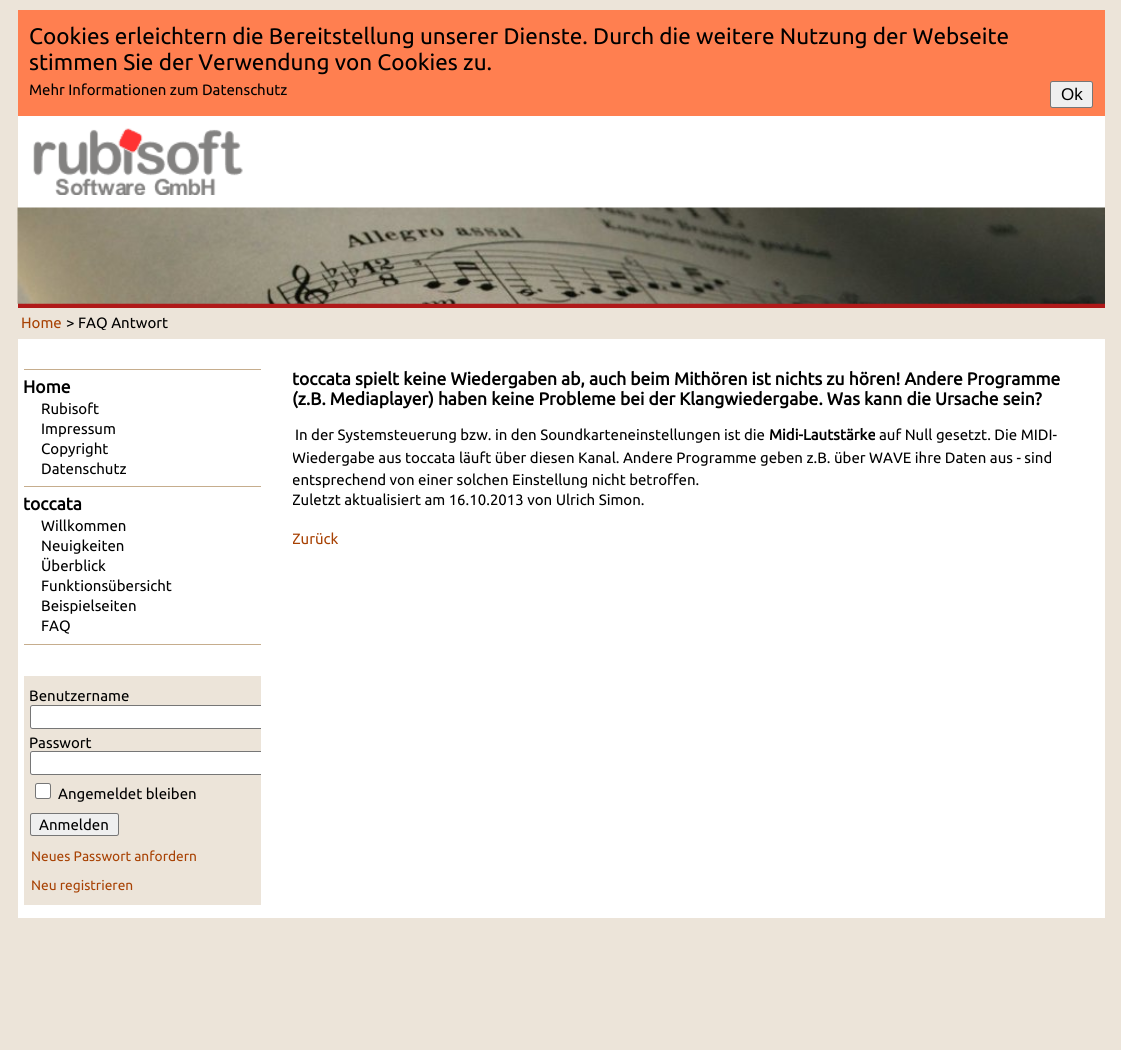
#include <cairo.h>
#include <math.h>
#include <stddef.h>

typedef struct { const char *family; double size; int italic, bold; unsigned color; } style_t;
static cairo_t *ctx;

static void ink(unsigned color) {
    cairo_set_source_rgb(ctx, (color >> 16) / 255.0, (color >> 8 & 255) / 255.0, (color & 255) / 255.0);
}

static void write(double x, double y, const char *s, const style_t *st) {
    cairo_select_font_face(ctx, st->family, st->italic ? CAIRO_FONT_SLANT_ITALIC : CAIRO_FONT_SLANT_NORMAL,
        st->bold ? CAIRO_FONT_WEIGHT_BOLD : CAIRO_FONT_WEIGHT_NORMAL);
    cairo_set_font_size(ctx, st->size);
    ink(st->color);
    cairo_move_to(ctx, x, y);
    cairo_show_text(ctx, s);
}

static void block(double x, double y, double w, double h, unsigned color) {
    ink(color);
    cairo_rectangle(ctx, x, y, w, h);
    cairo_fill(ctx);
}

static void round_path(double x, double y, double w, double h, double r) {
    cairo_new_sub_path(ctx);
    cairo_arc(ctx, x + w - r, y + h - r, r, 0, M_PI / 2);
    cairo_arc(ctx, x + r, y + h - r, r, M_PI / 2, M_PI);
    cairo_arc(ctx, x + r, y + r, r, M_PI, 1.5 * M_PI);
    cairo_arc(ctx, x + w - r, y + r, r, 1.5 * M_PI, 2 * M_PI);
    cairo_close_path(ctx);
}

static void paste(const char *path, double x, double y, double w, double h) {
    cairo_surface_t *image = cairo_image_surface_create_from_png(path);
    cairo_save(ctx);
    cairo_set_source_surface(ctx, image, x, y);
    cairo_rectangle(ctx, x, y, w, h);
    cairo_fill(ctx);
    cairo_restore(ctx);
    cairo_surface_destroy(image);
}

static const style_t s1 = {"Ubuntu", 22.5, 0, 0, 0x000000};
static const style_t s2 = {"Ubuntu", 15, 0, 0, 0x000000};
static const style_t s3 = {"Liberation Sans", 17, 0, 0, 0x000000};
static const style_t s4 = {"Ubuntu", 15, 0, 0, 0xa84204};
static const style_t s5 = {"Ubuntu", 17.5, 0, 1, 0x000000};
static const style_t s6 = {"Ubuntu", 13.75, 0, 0, 0xa84204};
static const style_t s7 = {"Ubuntu", 15, 0, 1, 0x000000};

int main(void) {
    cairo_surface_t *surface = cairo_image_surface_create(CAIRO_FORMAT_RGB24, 1121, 1050);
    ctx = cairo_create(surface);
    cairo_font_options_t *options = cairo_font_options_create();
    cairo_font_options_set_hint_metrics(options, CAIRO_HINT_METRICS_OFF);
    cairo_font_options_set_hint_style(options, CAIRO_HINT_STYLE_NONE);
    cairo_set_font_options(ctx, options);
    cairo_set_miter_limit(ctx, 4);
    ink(0xece4d9);
    cairo_paint(ctx);
    block(18, 116, 1087, 802, 0xffffff);
    block(18, 10, 1087, 106, 0xff7f50);
    write(29, 44, "Cookies erleichtern die Bereitstellung unserer Dienste. Durch die weitere Nutzung der Webseite", &s1);
    write(29, 70, "stimmen Sie der Verwendung von Cookies zu.", &s1);
    write(29, 95, "Mehr Informationen zum Datenschutz", &s2);
    ink(0xefefef);
    round_path(1050.5, 81.5, 42, 26, 2);
    cairo_fill_preserve(ctx);
    ink(0x767676);
    cairo_set_line_width(ctx, 1);
    cairo_stroke(ctx);
    write(1061, 100, "Ok", &s3);
    paste("pic1.png", 33, 128, 210, 67);
    block(18, 303, 1087, 5, 0xb01919);
    paste("pic2.png", 17, 207, 1088, 97);
    block(18, 308, 1087, 31, 0xece4d9);
    write(21, 328, "Home", &s4);
    write(66, 328, ">", &s2);
    cairo_save(ctx);
    cairo_rectangle(ctx, 21, 314, 1080, 16);
    cairo_clip(ctx);
    write(78, 328, "FAQ Antwort", &s2);
    cairo_restore(ctx);
    block(24, 644, 237, 1, 0xc6ad8d);
    block(24, 369, 237, 1, 0xc6ad8d);
    write(23, 393, "Home", &s5);
    write(41, 414, "Rubisoft", &s2);
    write(41, 434, "Impressum", &s2);
    write(41, 454, "Copyright", &s2);
    write(41, 474, "Datenschutz", &s2);
    block(24, 486, 237, 1, 0xc6ad8d);
    write(23, 510, "toccata", &s5);
    write(41, 531, "Willkommen", &s2);
    write(41, 551, "Neuigkeiten", &s2);
    write(41, 571, "Überblick", &s2);
    write(41, 591, "Funktionsübersicht", &s2);
    write(41, 611, "Beispielseiten", &s2);
    write(41, 631, "FAQ", &s2);
    block(24, 676, 237, 229, 0xece4d9);
    write(29, 701, "Benutzername", &s2);
    ink(0xffffff);
    cairo_new_path(ctx);
    cairo_move_to(ctx, 32.5, 705);
    cairo_line_to(ctx, 261, 705);
    cairo_line_to(ctx, 261, 729);
    cairo_line_to(ctx, 32.5, 729);
    cairo_curve_to(ctx, 31, 729, 30, 728, 30, 726.5);
    cairo_line_to(ctx, 30, 707.5);
    cairo_curve_to(ctx, 30, 706, 31, 705, 32.5, 705);
    cairo_close_path(ctx);
    cairo_fill(ctx);
    cairo_save(ctx);
    cairo_rectangle(ctx, 24, 676, 237, 172);
    cairo_clip(ctx);
    round_path(30.5, 705.5, 237, 23, 2);
    ink(0x767676);
    cairo_stroke(ctx);
    cairo_restore(ctx);
    write(29, 748, "Passwort", &s2);
    ink(0xffffff);
    cairo_new_path(ctx);
    cairo_move_to(ctx, 32.5, 751);
    cairo_line_to(ctx, 261, 751);
    cairo_line_to(ctx, 261, 775);
    cairo_line_to(ctx, 32.5, 775);
    cairo_curve_to(ctx, 31, 775, 30, 774, 30, 772.5);
    cairo_line_to(ctx, 30, 753.5);
    cairo_curve_to(ctx, 30, 752, 31, 751, 32.5, 751);
    cairo_close_path(ctx);
    cairo_fill(ctx);
    cairo_save(ctx);
    cairo_rectangle(ctx, 24, 676, 237, 172);
    cairo_clip(ctx);
    round_path(30.5, 751.5, 237, 23, 2);
    ink(0x767676);
    cairo_stroke(ctx);
    cairo_restore(ctx);
    round_path(35.5, 783.5, 15, 15, 2);
    cairo_fill_preserve(ctx);
    ink(0x767676);
    cairo_stroke(ctx);
    write(58, 799, "Angemeldet bleiben", &s2);
    ink(0xefefef);
    round_path(30.5, 813.5, 88, 22, 2);
    cairo_fill_preserve(ctx);
    ink(0x767676);
    cairo_stroke(ctx);
    write(39, 830, "Anmelden", &s2);
    write(31, 861, "Neues Passwort anfordern", &s6);
    write(31, 890, "Neu registrieren", &s6);
    write(292, 385, "toccata spielt keine Wiedergaben ab, auch beim Mithören ist nichts zu hören! Andere Programme", &s5);
    write(292, 405, "(z.B. Mediaplayer) haben keine Probleme bei der Klangwiedergabe. Was kann die Ursache sein?", &s5);
    write(295, 440, "In der Systemsteuerung bzw. in den Soundkarteneinstellungen ist die", &s2);
    write(769, 440, "Midi-Lautstärke", &s7);
    write(879, 440, "auf Null gesetzt. Die MIDI-", &s2);
    cairo_save(ctx);
    cairo_rectangle(ctx, 293, 424, 781, 67);
    cairo_clip(ctx);
    write(292, 463, "Wiedergabe aus toccata läuft über diesen Kanal. Andere Programme geben z.B. über WAVE ihre Daten aus - sind", &s2);
    write(292, 485, "entsprechend von einer solchen Einstellung nicht betroffen.", &s2);
    cairo_restore(ctx);
    cairo_save(ctx);
    cairo_rectangle(ctx, 293, 369, 781, 177);
    cairo_clip(ctx);
    write(292, 505, "Zuletzt aktualisiert am 16.10.2013 von Ulrich Simon.", &s2);
    write(292, 544, "Zurück", &s4);
    cairo_restore(ctx);
    cairo_surface_write_to_png(surface, "screenshot.png");
    cairo_font_options_destroy(options);
    cairo_destroy(ctx);
    cairo_surface_destroy(surface);
    return 0;
}
